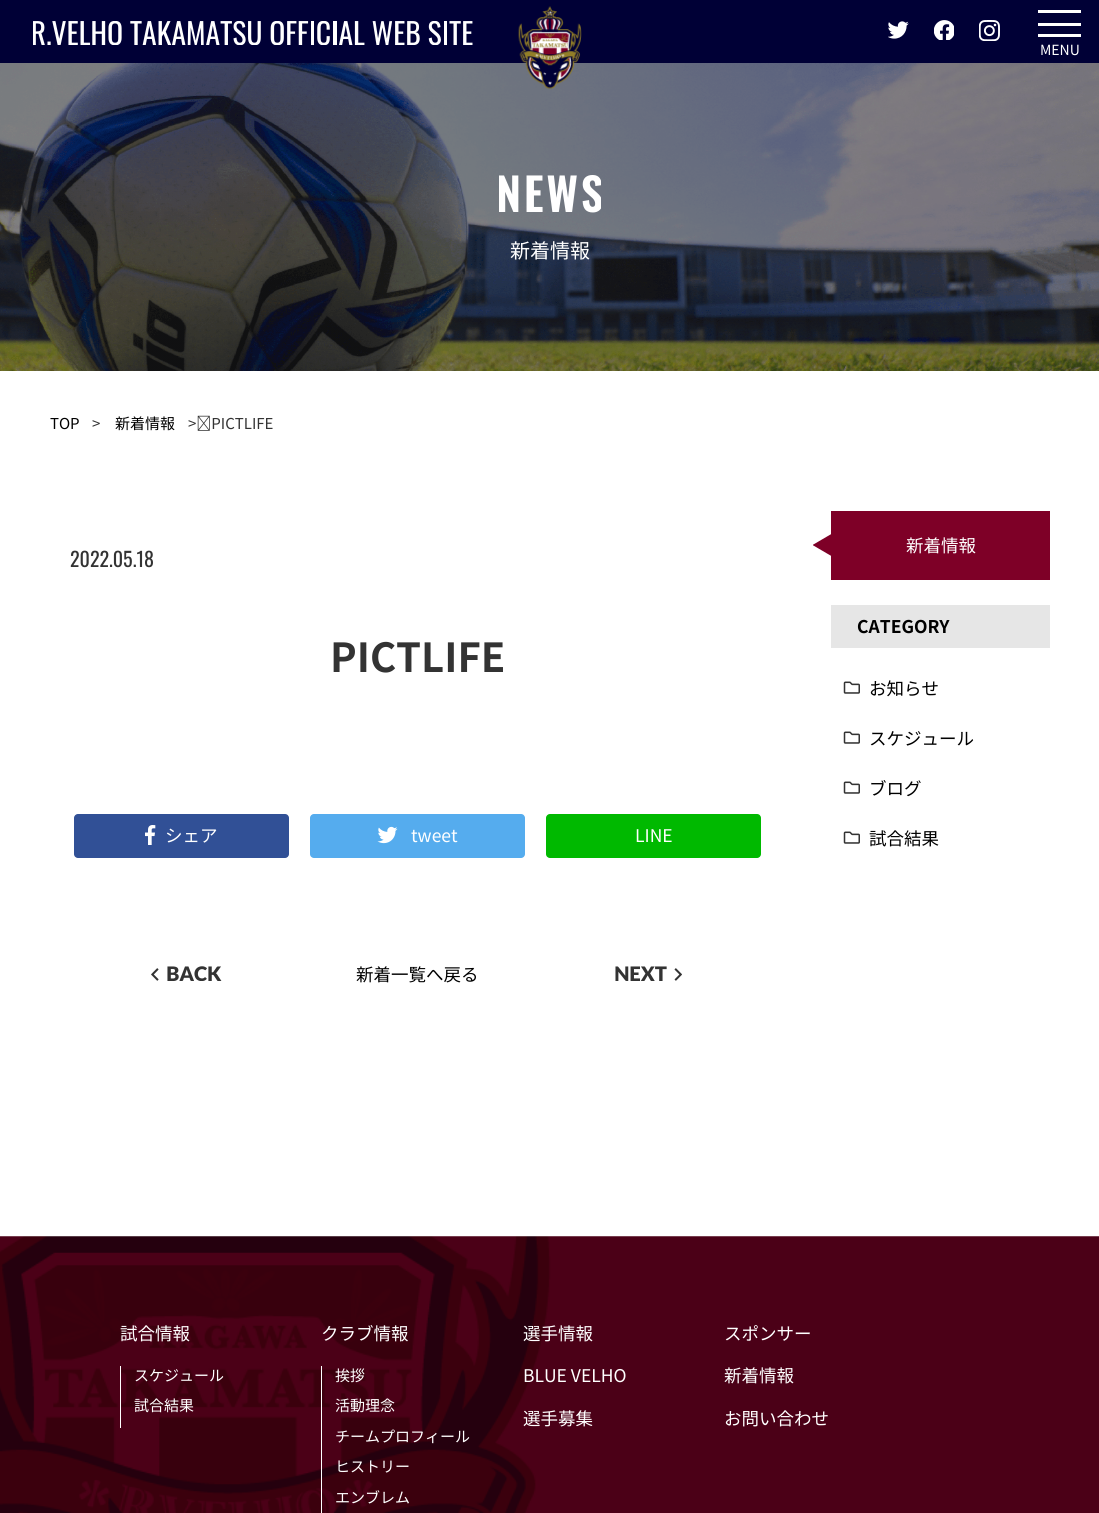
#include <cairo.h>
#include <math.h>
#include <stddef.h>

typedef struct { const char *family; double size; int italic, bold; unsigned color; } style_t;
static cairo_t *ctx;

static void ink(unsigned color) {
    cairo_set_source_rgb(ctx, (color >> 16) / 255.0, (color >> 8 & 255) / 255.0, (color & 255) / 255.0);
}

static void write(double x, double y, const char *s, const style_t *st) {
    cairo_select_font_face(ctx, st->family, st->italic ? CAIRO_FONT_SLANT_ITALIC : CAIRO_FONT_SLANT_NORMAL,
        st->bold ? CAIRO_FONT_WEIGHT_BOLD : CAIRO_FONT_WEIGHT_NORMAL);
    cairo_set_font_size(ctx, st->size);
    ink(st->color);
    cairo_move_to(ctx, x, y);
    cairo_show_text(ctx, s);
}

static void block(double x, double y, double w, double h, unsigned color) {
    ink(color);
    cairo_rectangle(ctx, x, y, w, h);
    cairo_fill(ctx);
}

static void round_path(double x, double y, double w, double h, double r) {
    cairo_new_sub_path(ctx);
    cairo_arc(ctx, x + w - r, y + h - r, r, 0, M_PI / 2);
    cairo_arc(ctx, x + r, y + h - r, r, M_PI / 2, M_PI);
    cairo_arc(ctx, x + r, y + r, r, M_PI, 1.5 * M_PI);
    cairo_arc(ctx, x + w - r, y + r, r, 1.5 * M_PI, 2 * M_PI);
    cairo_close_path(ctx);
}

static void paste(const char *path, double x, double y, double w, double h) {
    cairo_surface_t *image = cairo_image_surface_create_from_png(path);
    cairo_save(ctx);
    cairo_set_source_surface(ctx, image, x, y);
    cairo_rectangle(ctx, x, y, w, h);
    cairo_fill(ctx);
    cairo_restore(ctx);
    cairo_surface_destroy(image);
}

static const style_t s1 = {"Noto Sans JP", 14, 0, 0, 0xffffff};
static const style_t s2 = {"Noto Sans JP", 20, 0, 0, 0xffffff};
static const style_t s3 = {"Noto Sans JP", 15, 0, 0, 0x000000};
static const style_t s4 = {"Noto Sans JP", 15, 0, 0, 0x333333};
static const style_t s5 = {"Oswald", 20, 0, 0, 0x333333};
static const style_t s6 = {"Noto Sans JP", 40, 0, 1, 0x333333};
static const style_t s7 = {"Noto Sans JP", 17.5, 0, 0, 0xffffff};
static const style_t s8 = {"Noto Sans JP", 17.5, 0, 0, 0x000000};
static const style_t s9 = {"Noto Sans JP", 17.5, 0, 1, 0x000000};
static const style_t s10 = {"Noto Sans JP", 15, 0, 0, 0xffffff};

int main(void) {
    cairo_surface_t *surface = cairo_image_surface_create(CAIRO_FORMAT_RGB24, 1099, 1513);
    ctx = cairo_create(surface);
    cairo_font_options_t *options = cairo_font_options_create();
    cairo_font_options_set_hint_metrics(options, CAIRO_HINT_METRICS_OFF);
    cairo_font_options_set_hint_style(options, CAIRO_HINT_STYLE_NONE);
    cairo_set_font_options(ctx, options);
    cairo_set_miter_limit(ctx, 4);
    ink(0xffffff);
    cairo_paint(ctx);
    block(0, 0, 1099, 63, 0x000036);
    paste("pic1.png", 33, 21, 440, 24);
    paste("pic6.png", 0, 63, 1099, 308);
    paste("pic2.png", 518, 6, 64, 84);
    paste("pic3.png", 888, 21, 21, 18);
    paste("pic4.png", 934, 20, 20, 20);
    paste("pic5.png", 979, 20, 21, 21);
    block(1038, 10, 43, 3, 0xffffff);
    block(1038, 23, 43, 3, 0xffffff);
    block(1038, 34, 43, 3, 0xffffff);
    write(1040, 55, "MENU", &s1);
    paste("pic7.png", 499, 175, 102, 38);
    write(510, 258, "新着情報", &s2);
    write(50, 429, "TOP", &s3);
    write(92, 429, ">", &s4);
    write(115, 429, "新着情報", &s3);
    write(188, 429, "> PICTLIFE", &s4);
    write(70, 567, "2022.05.18", &s5);
    write(330, 672, "PICTLIFE", &s6);
    ink(0x315096);
    round_path(74, 814, 215, 44, 4);
    cairo_fill(ctx);
    paste("pic8.png", 145, 825, 11, 20);
    write(165, 842, "シェア", &s7);
    ink(0x55acee);
    round_path(310, 814, 215, 44, 4);
    cairo_fill(ctx);
    paste("pic9.png", 377, 826, 21, 18);
    write(411, 842, "tweet", &s7);
    ink(0x00b900);
    round_path(546, 814, 215, 44, 4);
    cairo_fill(ctx);
    write(635, 842, "LINE", &s7);
    paste("pic10.png", 151, 966, 71, 15);
    write(356, 981, "新着一覧へ戻る", &s8);
    paste("pic11.png", 615, 966, 67, 15);
    block(831, 511, 219, 69, 0x7e0027);
    cairo_save(ctx);
    cairo_rectangle(ctx, 813, 534, 20, 24);
    cairo_clip(ctx);
    cairo_new_path(ctx);
    cairo_move_to(ctx, 812.5, 545);
    cairo_line_to(ctx, 833, 557);
    cairo_line_to(ctx, 833, 533);
    cairo_close_path(ctx);
    cairo_fill(ctx);
    cairo_restore(ctx);
    write(906, 552, "新着情報", &s7);
    block(831, 605, 219, 43, 0xe6e6e6);
    write(857, 633, "CATEGORY", &s9);
    paste("pic12.png", 843, 681, 17, 13);
    write(869, 695, "お知らせ", &s8);
    paste("pic12.png", 843, 731, 17, 13);
    write(869, 745, "スケジュール", &s8);
    paste("pic12.png", 843, 781, 17, 13);
    write(869, 795, "ブログ", &s8);
    paste("pic12.png", 843, 831, 17, 13);
    write(869, 845, "試合結果", &s8);
    paste("pic13.png", 0, 1236, 1099, 277);
    write(120, 1340, "試合情報", &s7);
    block(120, 1366, 1, 62, 0xffffff);
    write(134, 1381, "スケジュール", &s10);
    write(134, 1411, "試合結果", &s10);
    write(321, 1340, "クラブ情報", &s7);
    block(321, 1366, 1, 147, 0xffffff);
    write(335, 1381, "挨拶", &s10);
    write(335, 1411, "活動理念", &s10);
    write(335, 1442, "チームプロフィール", &s10);
    write(335, 1472, "ヒストリー", &s10);
    write(335, 1503, "エンブレム", &s10);
    write(523, 1340, "選手情報", &s7);
    write(724, 1340, "スポンサー", &s7);
    write(523, 1382, "BLUE VELHO", &s7);
    write(724, 1382, "新着情報", &s7);
    write(523, 1425, "選手募集", &s7);
    write(724, 1425, "お問い合わせ", &s7);
    cairo_surface_write_to_png(surface, "screenshot.png");
    cairo_font_options_destroy(options);
    cairo_destroy(ctx);
    cairo_surface_destroy(surface);
    return 0;
}
